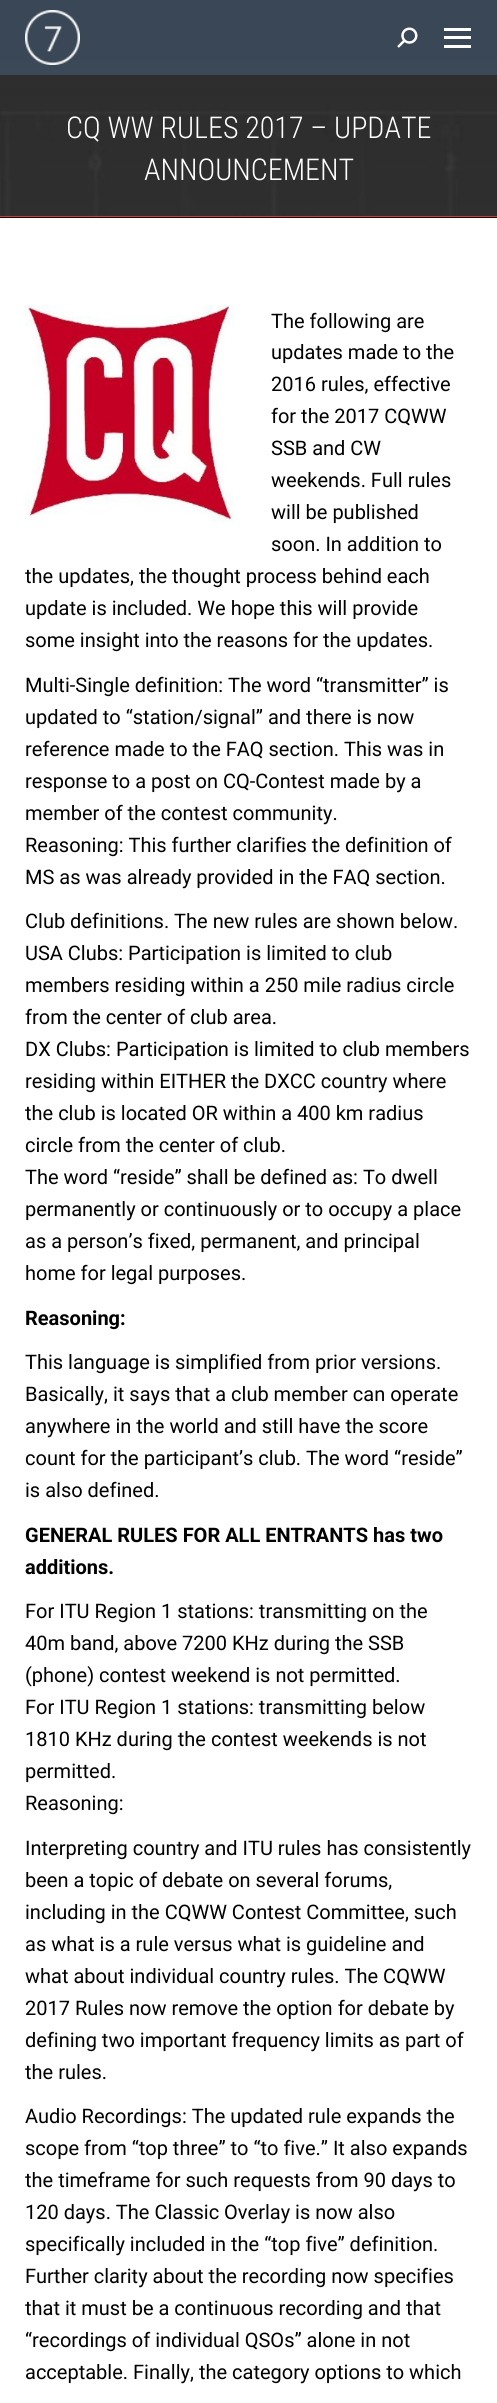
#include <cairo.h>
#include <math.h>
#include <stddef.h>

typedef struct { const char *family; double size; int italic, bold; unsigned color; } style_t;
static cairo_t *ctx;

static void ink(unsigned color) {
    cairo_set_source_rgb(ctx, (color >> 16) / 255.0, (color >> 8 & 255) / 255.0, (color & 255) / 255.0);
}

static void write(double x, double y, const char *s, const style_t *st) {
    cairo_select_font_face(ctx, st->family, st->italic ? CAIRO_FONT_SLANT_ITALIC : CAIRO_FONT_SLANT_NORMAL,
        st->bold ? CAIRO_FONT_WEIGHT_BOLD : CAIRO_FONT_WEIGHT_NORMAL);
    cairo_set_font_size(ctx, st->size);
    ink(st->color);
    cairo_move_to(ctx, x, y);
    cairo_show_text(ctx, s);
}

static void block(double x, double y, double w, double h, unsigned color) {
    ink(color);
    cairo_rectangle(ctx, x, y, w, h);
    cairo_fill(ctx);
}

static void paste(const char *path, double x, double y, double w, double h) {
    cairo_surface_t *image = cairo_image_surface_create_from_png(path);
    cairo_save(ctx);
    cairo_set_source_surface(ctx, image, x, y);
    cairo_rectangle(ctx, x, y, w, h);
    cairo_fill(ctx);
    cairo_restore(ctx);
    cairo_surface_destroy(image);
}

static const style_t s1 = {"Roboto Condensed Light", 30, 0, 0, 0xffffff};
static const style_t s2 = {"Roboto", 20, 0, 0, 0x000000};
static const style_t s3 = {"Roboto", 20, 0, 1, 0x000000};

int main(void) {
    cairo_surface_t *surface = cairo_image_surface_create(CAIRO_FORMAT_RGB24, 497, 2403);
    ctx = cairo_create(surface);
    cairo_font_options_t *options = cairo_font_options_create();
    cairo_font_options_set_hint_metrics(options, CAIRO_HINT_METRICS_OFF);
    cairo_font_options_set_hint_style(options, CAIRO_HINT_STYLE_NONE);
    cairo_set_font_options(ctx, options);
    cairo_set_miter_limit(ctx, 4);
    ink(0xffffff);
    cairo_paint(ctx);
    paste("pic3.png", 0, 0, 497, 218);
    cairo_set_source_rgba(ctx, 0.361, 0.514, 0.698, 0.32);
    cairo_rectangle(ctx, 0, 0, 497, 75);
    cairo_fill(ctx);
    paste("pic1.png", 25, 10, 55, 55);
    paste("pic2.png", 397, 27, 21, 21);
    block(444, 28, 27, 3, 0xffffff);
    block(444, 36, 27, 3, 0xffffff);
    block(444, 45, 27, 3, 0xffffff);
    block(0, 216, 497, 1, 0xdd3333);
    write(66, 138, "CQ WW RULES 2017 – UPDATE", &s1);
    write(144, 180, "ANNOUNCEMENT", &s1);
    paste("pic4.png", 25, 305, 209, 218);
    write(271, 328, "The following are", &s2);
    write(271, 359, "updates made to the", &s2);
    write(271, 391, "2016 rules, effective", &s2);
    write(271, 423, "for the 2017 CQWW", &s2);
    write(271, 455, "SSB and CW", &s2);
    write(271, 487, "weekends. Full rules", &s2);
    write(271, 519, "will be published", &s2);
    write(271, 551, "soon. In addition to", &s2);
    write(25, 583, "the updates, the thought process behind each", &s2);
    write(25, 615, "update is included. We hope this will provide", &s2);
    write(25, 647, "some insight into the reasons for the updates.", &s2);
    write(25, 692, "Multi-Single definition: The word “transmitter” is", &s2);
    write(25, 724, "updated to “station/signal” and there is now", &s2);
    write(25, 756, "reference made to the FAQ section. This was in", &s2);
    write(25, 788, "response to a post on CQ-Contest made by a", &s2);
    write(25, 820, "member of the contest community.", &s2);
    write(25, 852, "Reasoning: This further clarifies the definition of", &s2);
    write(25, 884, "MS as was already provided in the FAQ section.", &s2);
    write(25, 928, "Club definitions. The new rules are shown below.", &s2);
    write(25, 960, "USA Clubs: Participation is limited to club", &s2);
    write(25, 992, "members residing within a 250 mile radius circle", &s2);
    write(25, 1024, "from the center of club area.", &s2);
    write(25, 1056, "DX Clubs: Participation is limited to club members", &s2);
    write(25, 1088, "residing within EITHER the DXCC country where", &s2);
    write(25, 1120, "the club is located OR within a 400 km radius", &s2);
    write(25, 1152, "circle from the center of club.", &s2);
    write(25, 1184, "The word “reside” shall be defined as: To dwell", &s2);
    write(25, 1216, "permanently or continuously or to occupy a place", &s2);
    write(25, 1248, "as a person’s fixed, permanent, and principal", &s2);
    write(25, 1280, "home for legal purposes.", &s2);
    write(25, 1325, "Reasoning:", &s3);
    write(25, 1369, "This language is simplified from prior versions.", &s2);
    write(25, 1401, "Basically, it says that a club member can operate", &s2);
    write(25, 1433, "anywhere in the world and still have the score", &s2);
    write(25, 1465, "count for the participant’s club. The word “reside”", &s2);
    write(25, 1497, "is also defined.", &s2);
    write(25, 1542, "GENERAL RULES FOR ALL ENTRANTS has two", &s3);
    write(25, 1574, "additions.", &s3);
    write(25, 1618, "For ITU Region 1 stations: transmitting on the", &s2);
    write(25, 1650, "40m band, above 7200 KHz during the SSB", &s2);
    write(25, 1682, "(phone) contest weekend is not permitted.", &s2);
    write(25, 1714, "For ITU Region 1 stations: transmitting below", &s2);
    write(25, 1746, "1810 KHz during the contest weekends is not", &s2);
    write(25, 1778, "permitted.", &s2);
    write(25, 1810, "Reasoning:", &s2);
    write(25, 1855, "Interpreting country and ITU rules has consistently", &s2);
    write(25, 1887, "been a topic of debate on several forums,", &s2);
    write(25, 1919, "including in the CQWW Contest Committee, such", &s2);
    write(25, 1951, "as what is a rule versus what is guideline and", &s2);
    write(25, 1983, "what about individual country rules. The CQWW", &s2);
    write(25, 2015, "2017 Rules now remove the option for debate by", &s2);
    write(25, 2047, "defining two important frequency limits as part of", &s2);
    write(25, 2079, "the rules.", &s2);
    write(25, 2123, "Audio Recordings: The updated rule expands the", &s2);
    write(25, 2155, "scope from “top three” to “to five.” It also expands", &s2);
    write(25, 2187, "the timeframe for such requests from 90 days to", &s2);
    write(25, 2219, "120 days. The Classic Overlay is now also", &s2);
    write(25, 2251, "specifically included in the “top five” definition.", &s2);
    write(25, 2283, "Further clarity about the recording now specifies", &s2);
    write(25, 2315, "that it must be a continuous recording and that", &s2);
    write(25, 2347, "“recordings of individual QSOs” alone in not", &s2);
    write(25, 2379, "acceptable. Finally, the category options to which", &s2);
    cairo_surface_write_to_png(surface, "screenshot.png");
    cairo_font_options_destroy(options);
    cairo_destroy(ctx);
    cairo_surface_destroy(surface);
    return 0;
}
